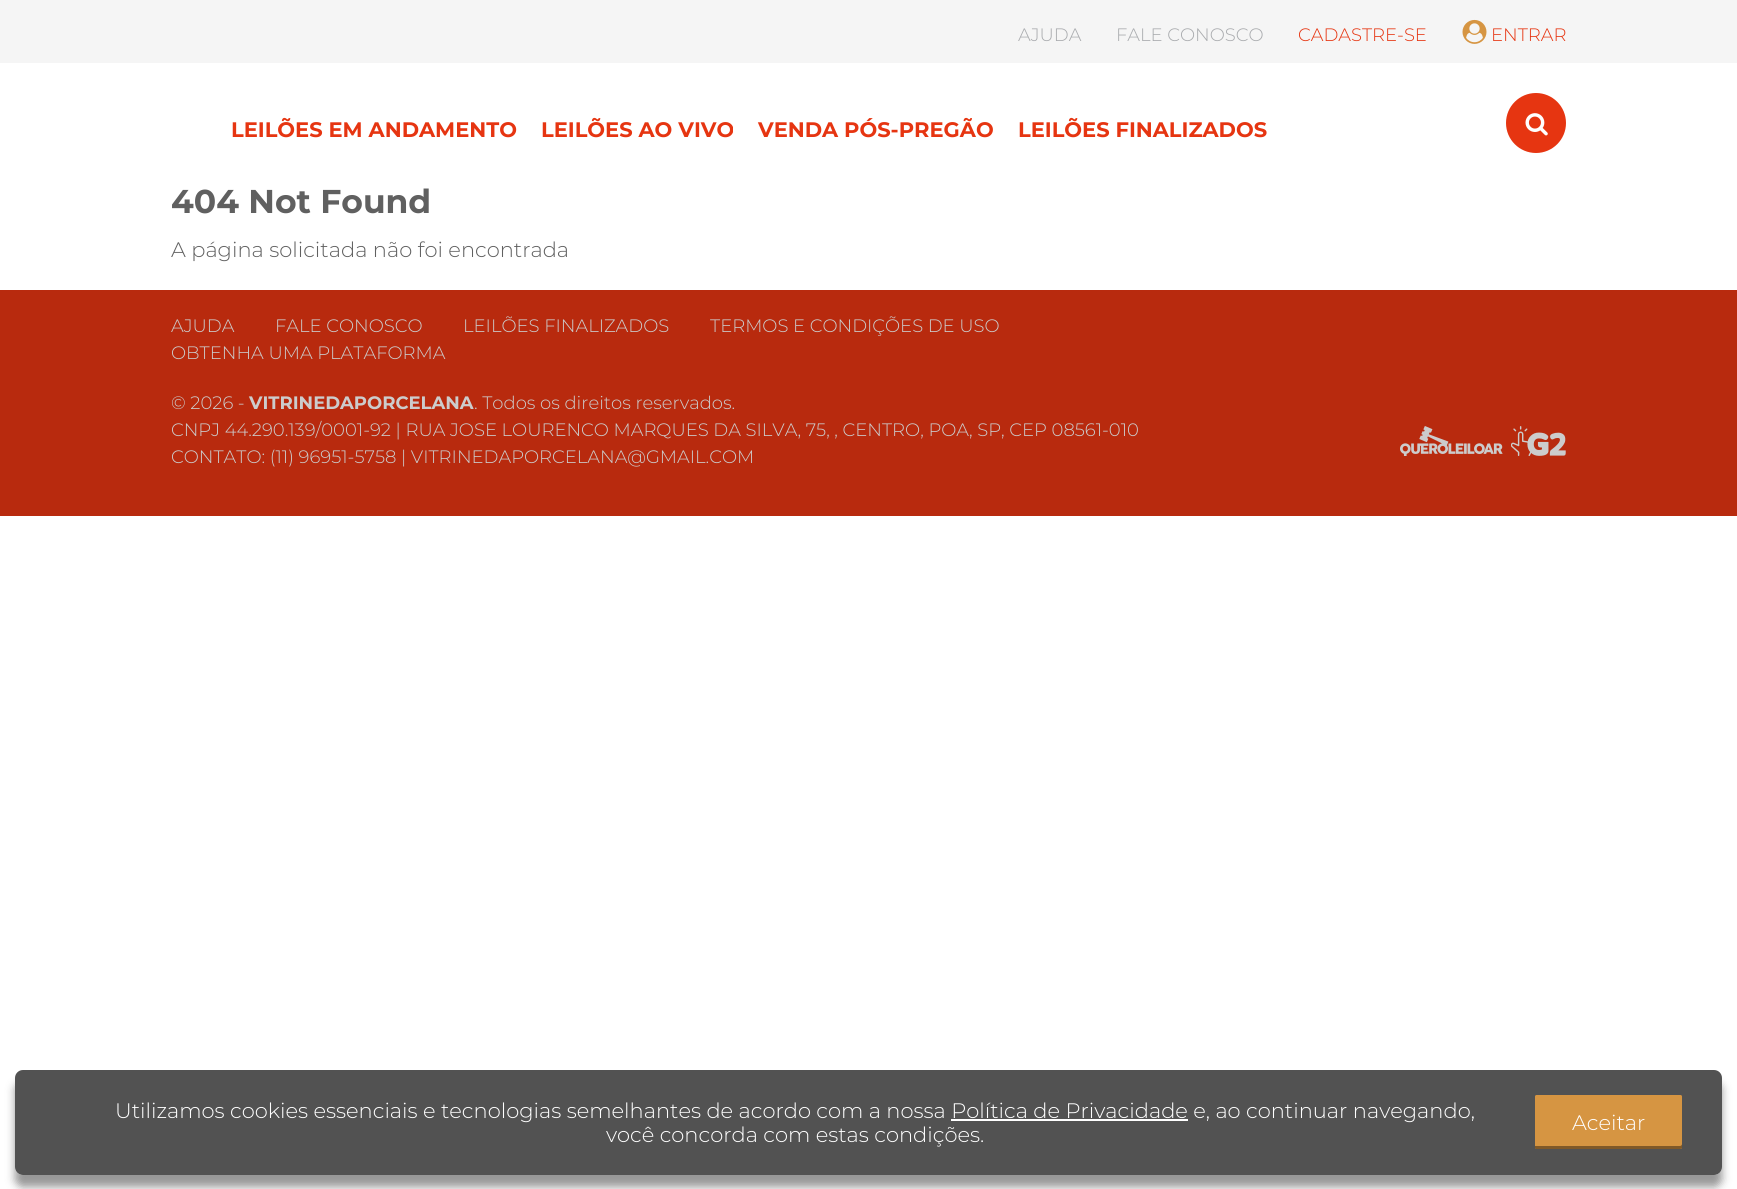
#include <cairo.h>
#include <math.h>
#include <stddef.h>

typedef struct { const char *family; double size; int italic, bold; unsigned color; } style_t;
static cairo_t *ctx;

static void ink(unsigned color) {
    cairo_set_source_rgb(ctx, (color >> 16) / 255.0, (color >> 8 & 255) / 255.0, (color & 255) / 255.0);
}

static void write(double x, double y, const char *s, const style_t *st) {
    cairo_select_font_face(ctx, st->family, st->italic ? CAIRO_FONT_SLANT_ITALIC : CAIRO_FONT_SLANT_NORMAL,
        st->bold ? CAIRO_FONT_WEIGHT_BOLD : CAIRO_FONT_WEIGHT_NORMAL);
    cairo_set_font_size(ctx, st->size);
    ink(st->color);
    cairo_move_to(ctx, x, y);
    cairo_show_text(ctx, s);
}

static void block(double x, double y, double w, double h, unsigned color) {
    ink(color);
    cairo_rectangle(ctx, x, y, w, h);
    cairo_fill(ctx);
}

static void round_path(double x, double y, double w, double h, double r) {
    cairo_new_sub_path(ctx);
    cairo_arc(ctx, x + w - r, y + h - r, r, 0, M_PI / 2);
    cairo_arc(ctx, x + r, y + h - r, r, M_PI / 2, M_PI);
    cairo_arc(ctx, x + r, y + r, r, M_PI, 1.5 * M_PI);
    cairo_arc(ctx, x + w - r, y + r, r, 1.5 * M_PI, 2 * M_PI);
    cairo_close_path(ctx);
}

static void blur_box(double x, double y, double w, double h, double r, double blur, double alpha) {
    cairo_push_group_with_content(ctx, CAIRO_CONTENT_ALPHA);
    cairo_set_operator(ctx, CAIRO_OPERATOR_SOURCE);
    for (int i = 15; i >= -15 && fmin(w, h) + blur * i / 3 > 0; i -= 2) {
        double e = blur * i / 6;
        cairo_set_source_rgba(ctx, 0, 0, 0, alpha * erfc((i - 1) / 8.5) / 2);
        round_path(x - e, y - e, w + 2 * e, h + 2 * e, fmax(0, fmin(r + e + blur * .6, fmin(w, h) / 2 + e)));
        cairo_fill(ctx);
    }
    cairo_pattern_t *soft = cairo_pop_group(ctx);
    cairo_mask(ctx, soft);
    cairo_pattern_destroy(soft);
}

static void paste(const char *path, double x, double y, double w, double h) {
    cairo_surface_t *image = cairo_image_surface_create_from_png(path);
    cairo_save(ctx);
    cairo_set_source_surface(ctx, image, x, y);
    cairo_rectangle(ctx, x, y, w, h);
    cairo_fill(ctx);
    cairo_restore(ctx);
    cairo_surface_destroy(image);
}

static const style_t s1 = {"Montserrat Light", 18, 0, 0, 0xa9abae};
static const style_t s2 = {"Montserrat Light", 18, 0, 0, 0xe63511};
static const style_t s3 = {"Montserrat", 21, 0, 1, 0xe63511};
static const style_t s4 = {"Montserrat", 33, 0, 1, 0x606060};
static const style_t s5 = {"Montserrat Light", 21, 0, 0, 0x606060};
static const style_t s6 = {"Montserrat Light", 18, 0, 0, 0xcccccc};
static const style_t s7 = {"Montserrat", 18, 0, 1, 0xcccccc};
static const style_t s8 = {"Montserrat Light", 21, 0, 0, 0xffffff};

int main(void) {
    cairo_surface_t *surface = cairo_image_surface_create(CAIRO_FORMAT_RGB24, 1737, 1189);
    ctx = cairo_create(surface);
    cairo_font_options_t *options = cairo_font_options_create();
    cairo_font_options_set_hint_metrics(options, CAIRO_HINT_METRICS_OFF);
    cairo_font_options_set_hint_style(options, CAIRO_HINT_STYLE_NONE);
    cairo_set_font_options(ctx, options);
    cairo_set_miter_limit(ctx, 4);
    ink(0xffffff);
    cairo_paint(ctx);
    block(0, 0, 1737, 63, 0xf5f5f5);
    write(1018, 41, "AJUDA", &s1);
    write(1116, 41, "FALE CONOSCO", &s1);
    write(1298, 41, "CADASTRE-SE", &s2);
    paste("pic1.png", 1462, 19, 25, 25);
    write(1491, 41, "ENTRAR", &s2);
    write(231, 137, "LEILÕES EM ANDAMENTO", &s3);
    write(541, 137, "LEILÕES AO VIVO", &s3);
    write(758, 137, "VENDA PÓS-PREGÃO", &s3);
    write(1018, 137, "LEILÕES FINALIZADOS", &s3);
    cairo_new_path(ctx);
    cairo_arc(ctx, 1536, 123, 30, 0, 2 * M_PI);
    cairo_fill(ctx);
    paste("pic2.png", 1525, 113, 23, 23);
    write(171, 213, "404 Not Found", &s4);
    write(171, 257, "A página solicitada não foi encontrada", &s5);
    block(0, 290, 1737, 226, 0xb82a0e);
    write(171, 332, "AJUDA", &s6);
    write(275, 332, "FALE CONOSCO", &s6);
    write(463, 332, "LEILÕES FINALIZADOS", &s6);
    write(710, 332, "TERMOS E CONDIÇÕES DE USO", &s6);
    write(171, 359, "OBTENHA UMA PLATAFORMA", &s6);
    write(171, 409, "© 2026 -", &s6);
    write(249, 409, "VITRINEDAPORCELANA", &s7);
    write(474, 409, ". Todos os direitos reservados.", &s6);
    write(171, 436, "CNPJ 44.290.139/0001-92 | RUA JOSE LOURENCO MARQUES DA SILVA, 75, , CENTRO, POA, SP, CEP 08561-010", &s6);
    write(171, 463, "CONTATO: (11) 96951-5758 | VITRINEDAPORCELANA@GMAIL.COM", &s6);
    paste("pic3.png", 1400, 426, 103, 30);
    paste("pic4.png", 1511, 426, 55, 30);
    cairo_save(ctx);
    cairo_set_fill_rule(ctx, CAIRO_FILL_RULE_EVEN_ODD);
    cairo_new_path(ctx);
    cairo_move_to(ctx, 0, 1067);
    cairo_line_to(ctx, 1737, 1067);
    cairo_line_to(ctx, 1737, 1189);
    cairo_line_to(ctx, 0, 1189);
    cairo_close_path(ctx);
    cairo_move_to(ctx, 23, 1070);
    cairo_line_to(ctx, 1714, 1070);
    cairo_curve_to(ctx, 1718.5, 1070, 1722, 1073.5, 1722, 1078);
    cairo_line_to(ctx, 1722, 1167);
    cairo_curve_to(ctx, 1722, 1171.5, 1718.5, 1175, 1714, 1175);
    cairo_line_to(ctx, 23, 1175);
    cairo_curve_to(ctx, 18.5, 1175, 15, 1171.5, 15, 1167);
    cairo_line_to(ctx, 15, 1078);
    cairo_curve_to(ctx, 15, 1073.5, 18.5, 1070, 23, 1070);
    cairo_close_path(ctx);
    cairo_clip(ctx);
    ink(0x000000);
    blur_box(15, 1082, 1707, 105, 8, 4.5, 0.41);
    cairo_restore(ctx);
    cairo_set_source_rgba(ctx, 0.251, 0.251, 0.251, 0.9);
    round_path(15, 1070, 1707, 105, 8);
    cairo_fill(ctx);
    write(115, 1118, "Utilizamos cookies essenciais e tecnologias semelhantes de acordo com a nossa Política de Privacidade e, ao continuar navegando,", &s8);
    block(951, 1119, 237, 2, 0xffffff);
    write(606, 1142, "você concorda com estas condições.", &s8);
    ink(0xd69542);
    round_path(1535, 1095, 147, 54, 1.5);
    cairo_fill(ctx);
    cairo_set_source_rgba(ctx, 0, 0, 0, 0.4);
    cairo_new_path(ctx);
    cairo_move_to(ctx, 1535, 1146);
    cairo_line_to(ctx, 1535, 1148);
    cairo_curve_to(ctx, 1535, 1148, 1536, 1149, 1536, 1149);
    cairo_line_to(ctx, 1680, 1149);
    cairo_curve_to(ctx, 1681, 1149, 1682, 1148, 1682, 1148);
    cairo_line_to(ctx, 1682, 1144);
    cairo_curve_to(ctx, 1682, 1145, 1681, 1146, 1680, 1146);
    cairo_close_path(ctx);
    cairo_fill(ctx);
    write(1572, 1130, "Aceitar", &s8);
    cairo_surface_write_to_png(surface, "screenshot.png");
    cairo_font_options_destroy(options);
    cairo_destroy(ctx);
    cairo_surface_destroy(surface);
    return 0;
}
